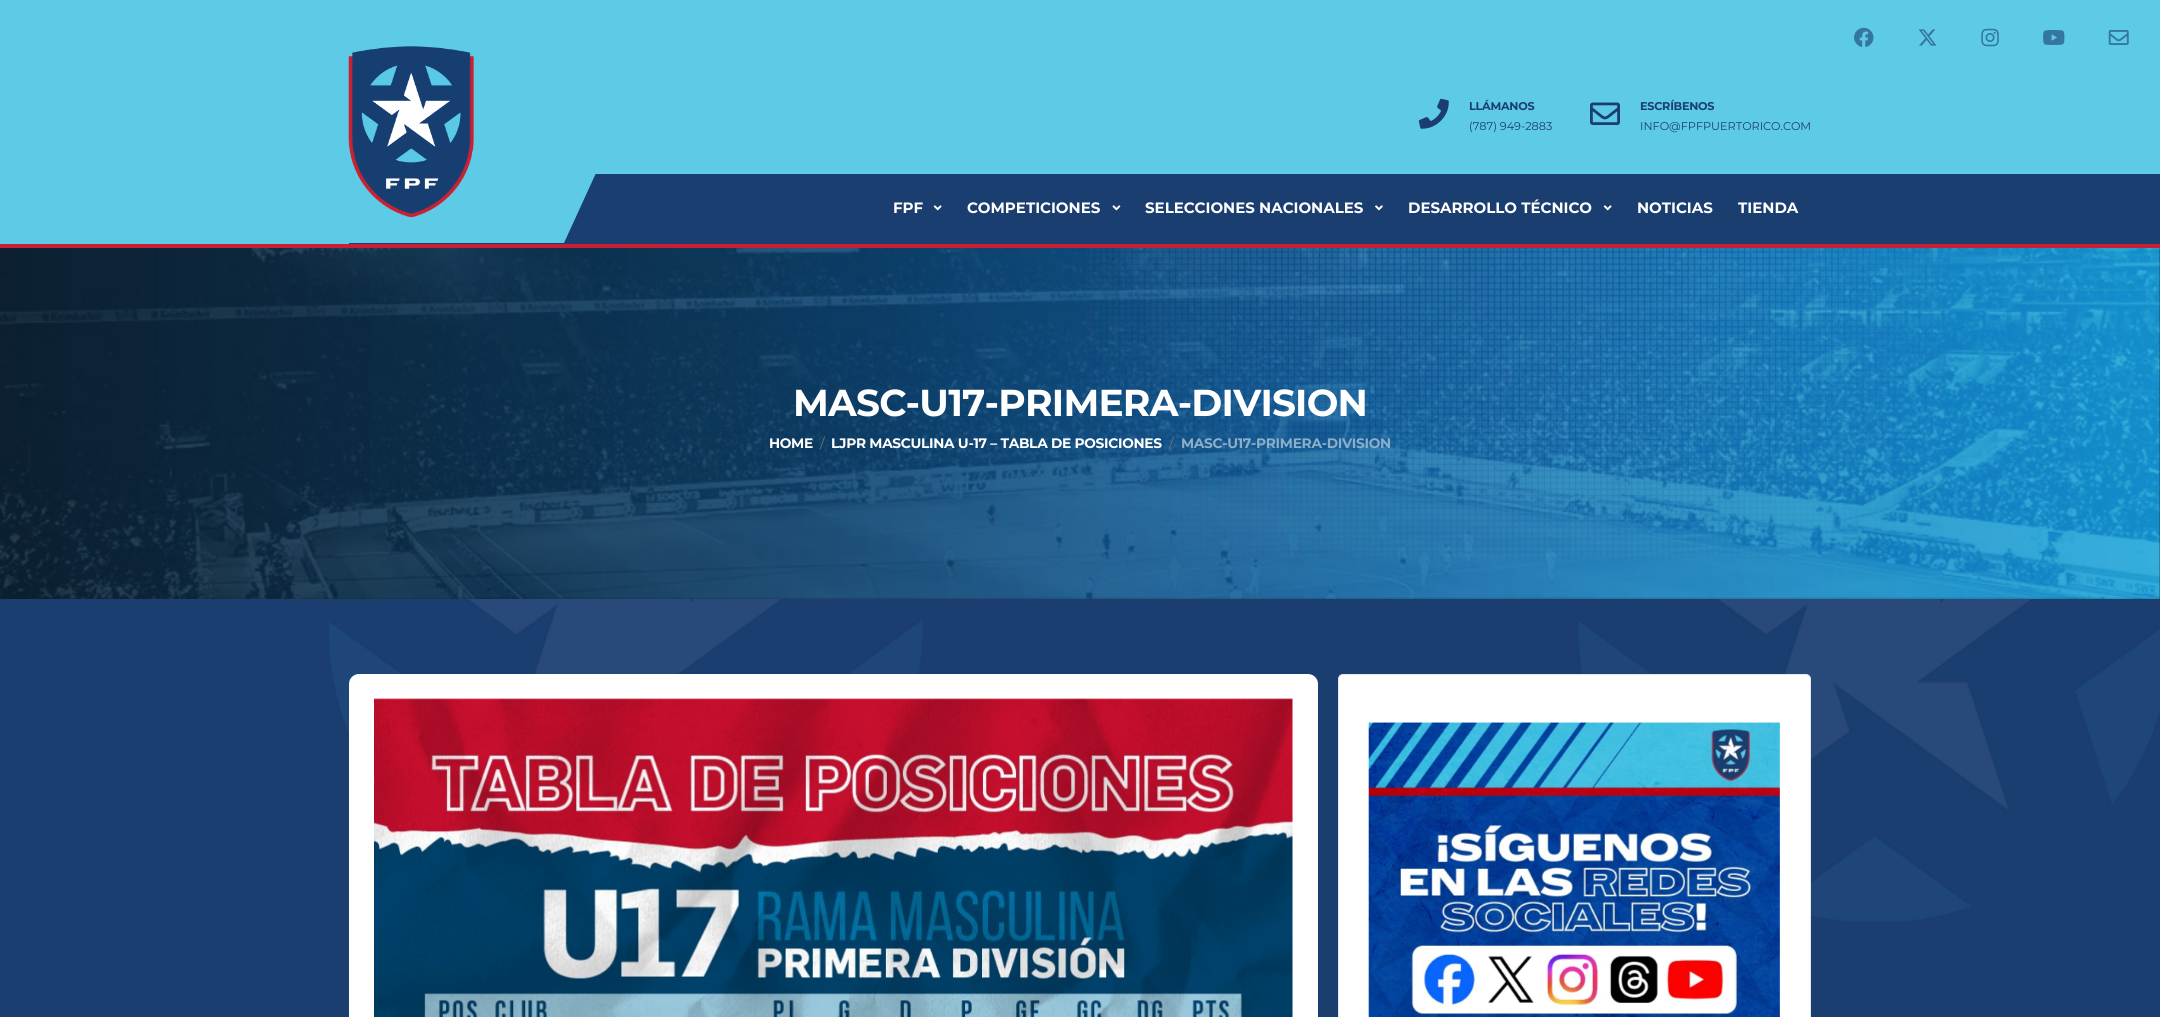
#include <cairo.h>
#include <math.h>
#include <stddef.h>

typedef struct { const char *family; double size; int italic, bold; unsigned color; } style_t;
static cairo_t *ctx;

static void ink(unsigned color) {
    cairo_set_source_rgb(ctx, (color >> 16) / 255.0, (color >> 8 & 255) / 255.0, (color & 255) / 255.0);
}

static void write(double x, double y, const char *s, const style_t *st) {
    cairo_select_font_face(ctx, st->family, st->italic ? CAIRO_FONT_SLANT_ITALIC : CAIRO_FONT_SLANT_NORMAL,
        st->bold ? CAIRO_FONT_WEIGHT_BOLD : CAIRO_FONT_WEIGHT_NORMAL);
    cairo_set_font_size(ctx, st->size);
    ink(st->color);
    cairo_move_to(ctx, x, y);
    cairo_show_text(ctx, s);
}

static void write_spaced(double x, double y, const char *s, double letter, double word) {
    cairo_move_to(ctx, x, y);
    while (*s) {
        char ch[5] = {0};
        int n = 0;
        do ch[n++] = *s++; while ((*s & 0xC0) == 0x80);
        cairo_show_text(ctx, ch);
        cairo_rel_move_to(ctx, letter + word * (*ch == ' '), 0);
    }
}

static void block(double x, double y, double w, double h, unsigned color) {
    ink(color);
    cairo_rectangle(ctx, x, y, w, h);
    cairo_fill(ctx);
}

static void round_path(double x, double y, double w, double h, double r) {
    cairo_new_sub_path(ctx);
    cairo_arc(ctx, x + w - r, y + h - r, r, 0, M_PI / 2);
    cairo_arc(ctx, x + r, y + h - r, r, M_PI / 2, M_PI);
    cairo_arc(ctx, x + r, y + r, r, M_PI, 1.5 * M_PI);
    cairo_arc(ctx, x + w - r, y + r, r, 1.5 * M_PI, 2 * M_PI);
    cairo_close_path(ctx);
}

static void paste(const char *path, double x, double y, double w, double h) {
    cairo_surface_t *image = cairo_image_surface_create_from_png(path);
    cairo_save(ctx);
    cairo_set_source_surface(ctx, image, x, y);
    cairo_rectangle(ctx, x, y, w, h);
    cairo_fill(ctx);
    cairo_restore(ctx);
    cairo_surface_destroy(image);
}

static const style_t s1 = {"Montserrat Thin", 11.25, 0, 0, 0x1b3e71};
static const style_t s2 = {"Montserrat", 15, 0, 1, 0xffffff};

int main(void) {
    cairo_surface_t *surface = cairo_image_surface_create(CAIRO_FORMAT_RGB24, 2160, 1017);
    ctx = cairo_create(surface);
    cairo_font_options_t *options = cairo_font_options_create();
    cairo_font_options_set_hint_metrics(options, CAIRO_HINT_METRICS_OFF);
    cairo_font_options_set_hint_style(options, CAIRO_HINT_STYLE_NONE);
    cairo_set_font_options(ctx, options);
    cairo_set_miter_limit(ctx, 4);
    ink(0x1b3e71);
    cairo_paint(ctx);
    paste("pic1.png", 329, 599, 1831, 323);
    block(0, 0, 2160, 244, 0x5dcae6);
    block(0, 244, 2160, 4, 0xc82032);
    paste("pic2.png", 1854, 27, 20, 20);
    paste("pic3.png", 1918, 29, 19, 17);
    paste("pic4.png", 1981, 28, 18, 19);
    paste("pic5.png", 2043, 30, 22, 15);
    paste("pic6.png", 2108, 30, 21, 15);
    paste("pic7.png", 1418, 98, 31, 31);
    cairo_select_font_face(ctx, "Montserrat", CAIRO_FONT_SLANT_NORMAL, CAIRO_FONT_WEIGHT_BOLD);
    cairo_set_font_size(ctx, 11.25);
    ink(0x1b3e71);
    write_spaced(1469, 110, "LLÁMANOS", -0.25, 0);
    write(1469, 130, "(787) 949-2883", &s1);
    paste("pic8.png", 1590, 102, 30, 23);
    cairo_select_font_face(ctx, "Montserrat", CAIRO_FONT_SLANT_NORMAL, CAIRO_FONT_WEIGHT_BOLD);
    write_spaced(1640, 110, "ESCRÍBENOS", -0.25, 0);
    write(1640, 130, "INFO@FPFPUERTORICO.COM", &s1);
    block(349, 174, 1811, 70, 0x1b3e71);
    ink(0x5dcae6);
    cairo_new_path(ctx);
    cairo_move_to(ctx, 334, 173);
    cairo_line_to(ctx, 596, 173);
    cairo_line_to(ctx, 564, 243);
    cairo_line_to(ctx, 301, 243);
    cairo_close_path(ctx);
    cairo_fill(ctx);
    paste("pic9.png", 348, 46, 126, 172);
    write(893, 213, "FPF", &s2);
    paste("pic10.png", 933, 205, 9, 6);
    write(967, 213, "COMPETICIONES", &s2);
    paste("pic11.png", 1112, 205, 9, 6);
    write(1145, 213, "SELECCIONES NACIONALES", &s2);
    paste("pic12.png", 1375, 205, 8, 6);
    write(1408, 213, "DESARROLLO TÉCNICO", &s2);
    paste("pic10.png", 1603, 205, 9, 6);
    write(1637, 213, "NOTICIAS", &s2);
    write(1738, 213, "TIENDA", &s2);
    block(0, 248, 2160, 351, 0x1e2024);
    paste("pic13.png", 0, 248, 2160, 351);
    paste("pic14.png", 1086, 248, 857, 310);
    cairo_set_font_size(ctx, 37.5);
    ink(0xffffff);
    write_spaced(793, 416, "MASC-U17-PRIMERA-DIVISION", -0.75, 0);
    cairo_set_font_size(ctx, 13.75);
    write_spaced(769, 448, "HOME", -0.3, 0);
    cairo_select_font_face(ctx, "Montserrat Thin", CAIRO_FONT_SLANT_NORMAL, CAIRO_FONT_WEIGHT_NORMAL);
    ink(0x757575);
    write_spaced(820, 448, "/", -0.3, 0);
    cairo_select_font_face(ctx, "Montserrat", CAIRO_FONT_SLANT_NORMAL, CAIRO_FONT_WEIGHT_BOLD);
    ink(0xffffff);
    write_spaced(831, 448, "LJPR MASCULINA U-17 – TABLA DE POSICIONES", -0.3, 0);
    cairo_select_font_face(ctx, "Montserrat Thin", CAIRO_FONT_SLANT_NORMAL, CAIRO_FONT_WEIGHT_NORMAL);
    ink(0x757575);
    write_spaced(1169, 448, "/", -0.3, 0);
    cairo_select_font_face(ctx, "Montserrat", CAIRO_FONT_SLANT_NORMAL, CAIRO_FONT_WEIGHT_BOLD);
    ink(0x8baec9);
    write_spaced(1181, 448, "MASC-U17-PRIMERA-DIVISION", -0.3, 0);
    ink(0xffffff);
    round_path(349, 674, 969, 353, 10);
    cairo_fill(ctx);
    paste("pic15.png", 374, 698, 919, 319);
    round_path(1338.5, 674.5, 472, 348, 4.5);
    cairo_fill_preserve(ctx);
    ink(0xe4e7ed);
    cairo_set_line_width(ctx, 1);
    cairo_stroke(ctx);
    paste("pic16.png", 1368, 722, 412, 295);
    cairo_surface_write_to_png(surface, "screenshot.png");
    cairo_font_options_destroy(options);
    cairo_destroy(ctx);
    cairo_surface_destroy(surface);
    return 0;
}
